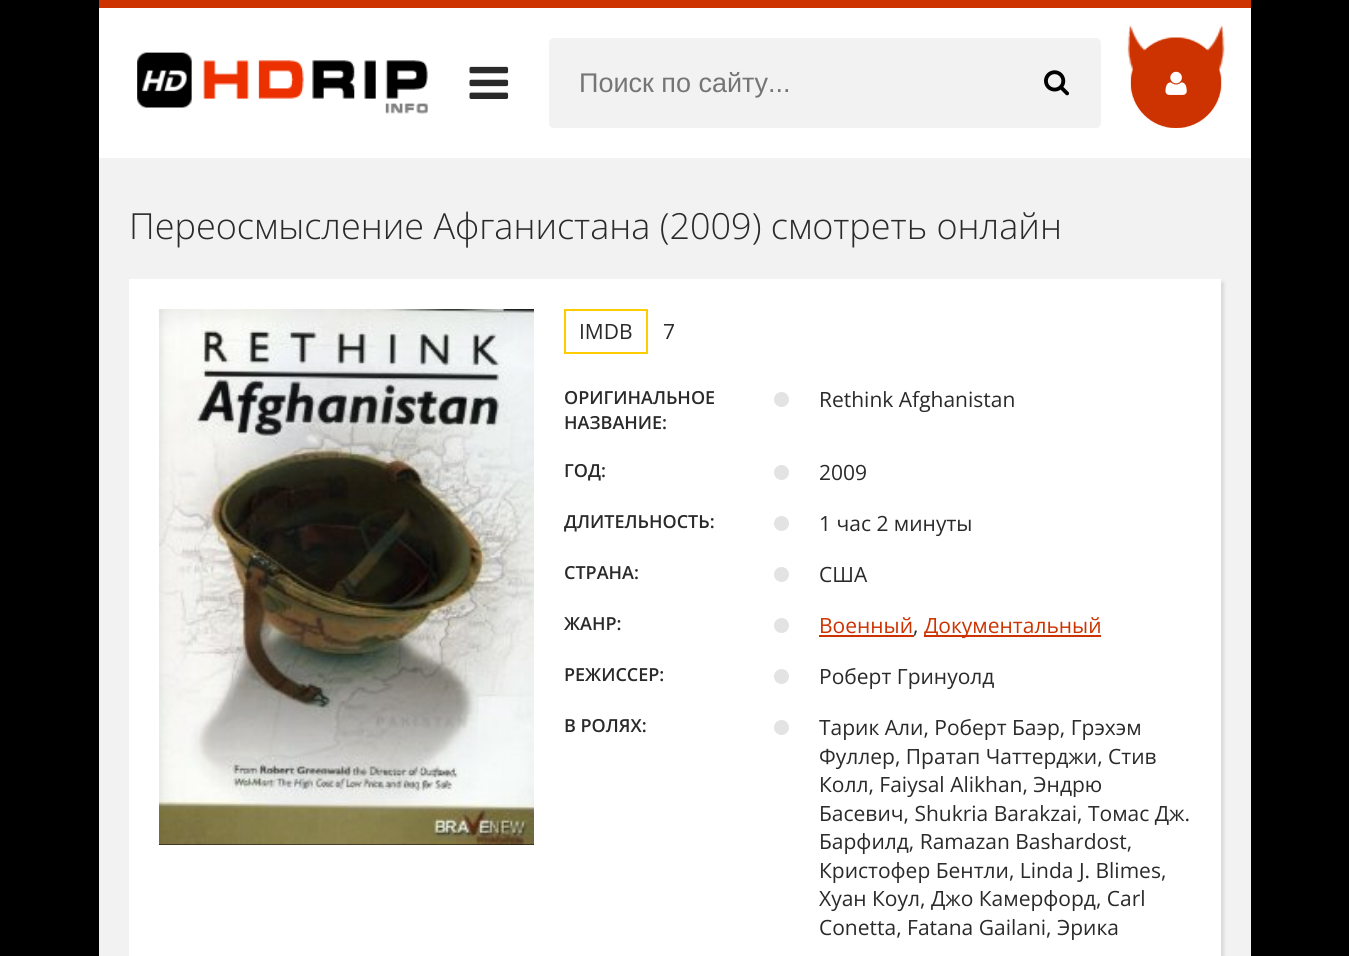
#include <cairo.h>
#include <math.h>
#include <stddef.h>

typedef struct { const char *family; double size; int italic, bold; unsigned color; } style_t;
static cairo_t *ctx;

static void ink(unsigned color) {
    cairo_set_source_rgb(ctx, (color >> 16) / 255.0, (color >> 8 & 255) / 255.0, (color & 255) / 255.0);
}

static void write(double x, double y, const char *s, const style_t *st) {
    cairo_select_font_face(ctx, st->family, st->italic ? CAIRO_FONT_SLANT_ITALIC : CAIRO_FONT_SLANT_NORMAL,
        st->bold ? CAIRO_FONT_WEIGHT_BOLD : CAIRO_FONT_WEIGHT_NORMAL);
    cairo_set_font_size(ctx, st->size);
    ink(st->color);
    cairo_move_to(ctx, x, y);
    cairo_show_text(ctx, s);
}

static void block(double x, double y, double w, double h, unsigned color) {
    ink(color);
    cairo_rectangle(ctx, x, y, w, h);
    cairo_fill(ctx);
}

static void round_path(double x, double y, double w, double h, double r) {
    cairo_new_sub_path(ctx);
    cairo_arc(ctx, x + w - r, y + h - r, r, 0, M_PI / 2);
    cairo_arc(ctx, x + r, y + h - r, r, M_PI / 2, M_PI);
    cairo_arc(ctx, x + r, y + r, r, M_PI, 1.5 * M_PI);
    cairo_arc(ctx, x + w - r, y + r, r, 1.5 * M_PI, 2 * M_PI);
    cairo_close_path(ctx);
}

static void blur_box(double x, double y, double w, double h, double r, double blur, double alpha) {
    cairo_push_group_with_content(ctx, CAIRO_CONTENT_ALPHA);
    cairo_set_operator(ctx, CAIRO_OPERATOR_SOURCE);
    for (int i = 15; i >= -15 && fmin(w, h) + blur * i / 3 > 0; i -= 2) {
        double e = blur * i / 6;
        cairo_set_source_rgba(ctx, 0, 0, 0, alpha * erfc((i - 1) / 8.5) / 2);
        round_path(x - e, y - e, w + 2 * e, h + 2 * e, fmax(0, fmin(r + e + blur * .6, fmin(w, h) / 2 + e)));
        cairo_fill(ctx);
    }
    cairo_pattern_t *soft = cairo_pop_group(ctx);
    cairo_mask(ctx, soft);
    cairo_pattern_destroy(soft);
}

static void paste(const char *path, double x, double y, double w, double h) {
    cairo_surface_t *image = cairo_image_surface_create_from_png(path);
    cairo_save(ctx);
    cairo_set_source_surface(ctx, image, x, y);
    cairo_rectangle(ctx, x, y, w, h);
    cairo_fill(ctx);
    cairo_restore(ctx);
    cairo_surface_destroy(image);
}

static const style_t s1 = {"Liberation Sans", 27, 0, 0, 0x757575};
static const style_t s2 = {"Open Sans Light", 36, 0, 0, 0x2a2a2a};
static const style_t s3 = {"Open Sans", 21, 0, 0, 0x2a2a2a};
static const style_t s4 = {"Open Sans SemiBold", 18, 0, 0, 0x2a2a2a};
static const style_t s5 = {"Open Sans", 21, 0, 0, 0xcc3300};

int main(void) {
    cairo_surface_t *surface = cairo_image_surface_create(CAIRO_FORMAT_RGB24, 1349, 956);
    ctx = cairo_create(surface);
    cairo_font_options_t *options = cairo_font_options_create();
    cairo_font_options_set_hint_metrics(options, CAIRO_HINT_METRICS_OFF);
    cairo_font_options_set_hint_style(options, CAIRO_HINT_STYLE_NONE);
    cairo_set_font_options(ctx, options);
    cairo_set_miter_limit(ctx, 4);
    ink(0x000000);
    cairo_paint(ctx);
    block(99, 158, 1152, 798, 0xf2f2f2);
    block(99, 0, 1152, 8, 0xcc3300);
    block(99, 8, 1152, 150, 0xffffff);
    paste("pic1.png", 1127, 25, 98, 103);
    paste("pic2.png", 137, 52, 291, 62);
    paste("pic3.png", 469, 66, 40, 33);
    ink(0xf2f2f2);
    round_path(549, 38, 552, 90, 5);
    cairo_fill(ctx);
    write(579, 92, "Поиск по сайту...", &s1);
    paste("pic4.png", 1044, 70, 26, 26);
    ink(0xcc3300);
    cairo_arc(ctx, 1176, 83, 45, 0, 2 * M_PI);
    cairo_fill(ctx);
    paste("pic5.png", 1165, 71, 22, 24);
    write(129, 239, "Переосмысление Афганистана (2009) смотреть онлайн", &s2);
    ink(0x000000);
    blur_box(132, 282, 1092, 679, 0, 1.5, 0.1);
    block(129, 279, 1092, 677, 0xffffff);
    block(159, 844, 375, 1, 0x000000);
    paste("pic6.png", 159, 309, 375, 536);
    cairo_rectangle(ctx, 565, 310, 82, 43);
    ink(0xffcc00);
    cairo_stroke(ctx);
    write(579, 339, "IMDB", &s3);
    write(663, 339, "7", &s3);
    write(564, 404, "ОРИГИНАЛЬНОЕ", &s4);
    write(564, 429, "НАЗВАНИЕ:", &s4);
    ink(0xe3e3e3);
    cairo_new_path(ctx);
    cairo_arc(ctx, 781.5, 399.5, 7.5, 0, 2 * M_PI);
    cairo_fill(ctx);
    write(819, 407, "Rethink Afghanistan", &s3);
    write(564, 477, "ГОД:", &s4);
    ink(0xe3e3e3);
    cairo_new_path(ctx);
    cairo_arc(ctx, 781.5, 472.5, 7.5, 0, 2 * M_PI);
    cairo_fill(ctx);
    write(819, 480, "2009", &s3);
    write(564, 528, "ДЛИТЕЛЬНОСТЬ:", &s4);
    ink(0xe3e3e3);
    cairo_new_path(ctx);
    cairo_arc(ctx, 781.5, 523.5, 7.5, 0, 2 * M_PI);
    cairo_fill(ctx);
    write(819, 531, "1 час 2 минуты", &s3);
    write(564, 579, "СТРАНА:", &s4);
    ink(0xe3e3e3);
    cairo_new_path(ctx);
    cairo_arc(ctx, 781.5, 574.5, 7.5, 0, 2 * M_PI);
    cairo_fill(ctx);
    write(819, 582, "США", &s3);
    write(564, 630, "ЖАНР:", &s4);
    ink(0xe3e3e3);
    cairo_new_path(ctx);
    cairo_arc(ctx, 781.5, 625.5, 7.5, 0, 2 * M_PI);
    cairo_fill(ctx);
    write(819, 633, "Военный", &s5);
    block(819, 635, 95, 2, 0xcc3300);
    write(913, 633, ",", &s3);
    block(924, 635, 177, 2, 0xcc3300);
    write(924, 633, "Документальный", &s5);
    write(564, 681, "РЕЖИССЕР:", &s4);
    ink(0xe3e3e3);
    cairo_new_path(ctx);
    cairo_arc(ctx, 781.5, 676.5, 7.5, 0, 2 * M_PI);
    cairo_fill(ctx);
    write(819, 684, "Роберт Гринуолд", &s3);
    write(564, 732, "В РОЛЯХ:", &s4);
    ink(0xe3e3e3);
    cairo_new_path(ctx);
    cairo_arc(ctx, 781.5, 727.5, 7.5, 0, 2 * M_PI);
    cairo_fill(ctx);
    write(819, 735, "Тарик Али, Роберт Баэр, Грэхэм", &s3);
    write(819, 764, "Фуллер, Пратап Чаттерджи, Стив", &s3);
    write(819, 792, "Колл, Faiysal Alikhan, Эндрю", &s3);
    write(819, 821, "Басевич, Shukria Barakzai, Томас Дж.", &s3);
    write(819, 849, "Барфилд, Ramazan Bashardost,", &s3);
    write(819, 878, "Кристофер Бентли, Linda J. Blimes,", &s3);
    write(819, 906, "Хуан Коул, Джо Камерфорд, Carl", &s3);
    write(819, 935, "Conetta, Fatana Gailani, Эрика", &s3);
    cairo_surface_write_to_png(surface, "screenshot.png");
    cairo_font_options_destroy(options);
    cairo_destroy(ctx);
    cairo_surface_destroy(surface);
    return 0;
}
